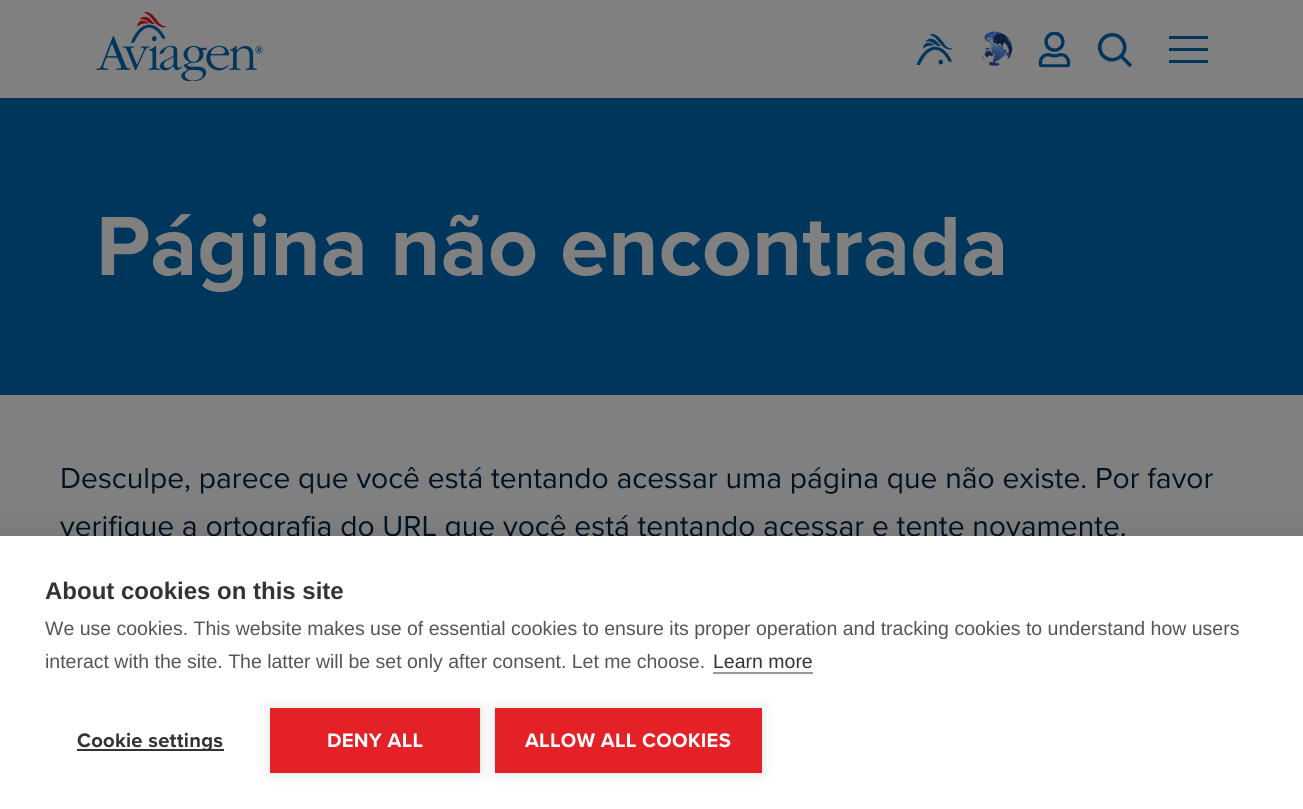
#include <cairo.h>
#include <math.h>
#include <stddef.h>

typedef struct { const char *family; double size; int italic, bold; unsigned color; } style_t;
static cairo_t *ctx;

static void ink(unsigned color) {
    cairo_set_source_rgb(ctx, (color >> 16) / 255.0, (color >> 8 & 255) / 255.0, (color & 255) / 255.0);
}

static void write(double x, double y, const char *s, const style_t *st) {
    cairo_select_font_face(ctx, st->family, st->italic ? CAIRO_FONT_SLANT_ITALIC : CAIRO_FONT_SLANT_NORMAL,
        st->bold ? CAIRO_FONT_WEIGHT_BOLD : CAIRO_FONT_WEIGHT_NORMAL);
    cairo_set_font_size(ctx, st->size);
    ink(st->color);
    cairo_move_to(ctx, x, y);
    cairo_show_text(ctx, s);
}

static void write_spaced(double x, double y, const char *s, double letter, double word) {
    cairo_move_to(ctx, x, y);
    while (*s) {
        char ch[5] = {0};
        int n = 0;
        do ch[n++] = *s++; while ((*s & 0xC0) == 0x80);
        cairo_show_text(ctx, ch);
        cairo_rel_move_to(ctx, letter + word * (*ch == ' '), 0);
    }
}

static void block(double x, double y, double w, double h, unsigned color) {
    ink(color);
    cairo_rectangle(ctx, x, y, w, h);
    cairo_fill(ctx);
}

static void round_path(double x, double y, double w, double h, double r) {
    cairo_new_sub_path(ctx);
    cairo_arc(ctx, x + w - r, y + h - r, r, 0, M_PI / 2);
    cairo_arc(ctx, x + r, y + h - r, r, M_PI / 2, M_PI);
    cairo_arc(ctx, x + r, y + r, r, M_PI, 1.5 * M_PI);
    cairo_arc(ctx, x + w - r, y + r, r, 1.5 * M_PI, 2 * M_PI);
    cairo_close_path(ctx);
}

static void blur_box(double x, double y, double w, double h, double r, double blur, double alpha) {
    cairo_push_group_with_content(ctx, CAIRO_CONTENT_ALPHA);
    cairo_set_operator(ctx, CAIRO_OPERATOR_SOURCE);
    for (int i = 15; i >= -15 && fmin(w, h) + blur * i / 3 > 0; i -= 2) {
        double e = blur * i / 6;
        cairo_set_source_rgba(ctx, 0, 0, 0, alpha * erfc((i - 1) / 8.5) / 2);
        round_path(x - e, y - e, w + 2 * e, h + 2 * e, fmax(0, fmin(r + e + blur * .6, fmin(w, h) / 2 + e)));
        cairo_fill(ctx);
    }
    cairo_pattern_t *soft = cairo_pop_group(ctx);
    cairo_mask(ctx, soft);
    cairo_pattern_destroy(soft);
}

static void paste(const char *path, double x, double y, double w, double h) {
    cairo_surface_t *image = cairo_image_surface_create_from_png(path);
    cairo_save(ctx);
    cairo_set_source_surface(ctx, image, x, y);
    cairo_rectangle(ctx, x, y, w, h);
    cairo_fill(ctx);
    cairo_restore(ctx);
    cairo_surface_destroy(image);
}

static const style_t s1 = {"Proxima Nova", 87, 0, 1, 0x808080};
static const style_t s2 = {"Proxima Nova", 30, 0, 0, 0x001322};
static const style_t s3 = {"Liberation Sans", 24, 0, 1, 0x333333};
static const style_t s4 = {"Liberation Sans", 19.5, 0, 0, 0x555555};
static const style_t s5 = {"Liberation Sans", 19.5, 0, 0, 0x333333};

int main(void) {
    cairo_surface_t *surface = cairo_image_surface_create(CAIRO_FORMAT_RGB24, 1303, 809);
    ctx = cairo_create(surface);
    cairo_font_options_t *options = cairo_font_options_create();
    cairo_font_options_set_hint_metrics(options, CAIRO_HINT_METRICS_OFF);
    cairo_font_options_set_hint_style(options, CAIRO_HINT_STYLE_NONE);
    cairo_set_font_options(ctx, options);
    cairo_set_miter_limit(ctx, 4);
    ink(0x808080);
    cairo_paint(ctx);
    paste("pic1.png", 96, 12, 167, 69);
    paste("pic2.png", 916, 34, 37, 31);
    paste("pic3.png", 980, 31, 33, 35);
    paste("pic4.png", 1038, 31, 33, 37);
    paste("pic5.png", 1097, 33, 35, 35);
    block(1169, 36, 39, 3, 0x00365c);
    block(1169, 48, 39, 3, 0x00365c);
    block(1169, 60, 39, 3, 0x00365c);
    block(0, 98, 1303, 297, 0x00365c);
    write(96, 275, "Página não encontrada", &s1);
    write(60, 488, "Desculpe, parece que você está tentando acessar uma página que não existe. Por favor", &s2);
    write(60, 536, "verifique a ortografia do URL que você está tentando acessar e tente novamente.", &s2);
    ink(0x000000);
    blur_box(0, 536, 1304, 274, 0, 15, 0.1);
    block(0, 536, 1303, 273, 0xffffff);
    write(45, 599, "About cookies on this site", &s3);
    write(45, 635, "We use cookies. This website makes use of essential cookies to ensure its proper operation and tracking cookies to understand how users", &s4);
    write(45, 668, "interact with the site. The latter will be set only after consent. Let me choose.", &s4);
    write(713, 668, "Learn more", &s5);
    block(713, 672, 100, 2, 0x999999);
    block(77, 749, 147, 2, 0x333333);
    cairo_select_font_face(ctx, "Proxima Nova", CAIRO_FONT_SLANT_NORMAL, CAIRO_FONT_WEIGHT_BOLD);
    cairo_set_font_size(ctx, 20.25);
    write_spaced(77, 747, "Cookie settings", 0.25, 0);
    ink(0x000000);
    blur_box(270, 708, 210, 65, 0, 7.5, 0.12);
    block(270, 708, 210, 65, 0xe42127);
    ink(0xffffff);
    write_spaced(327, 747, "DENY ALL", 0.25, 0);
    ink(0x000000);
    blur_box(495, 708, 267, 65, 0, 7.5, 0.12);
    block(495, 708, 267, 65, 0xe42127);
    ink(0xffffff);
    write_spaced(525, 747, "ALLOW ALL COOKIES", 0.25, 0);
    cairo_surface_write_to_png(surface, "screenshot.png");
    cairo_font_options_destroy(options);
    cairo_destroy(ctx);
    cairo_surface_destroy(surface);
    return 0;
}
